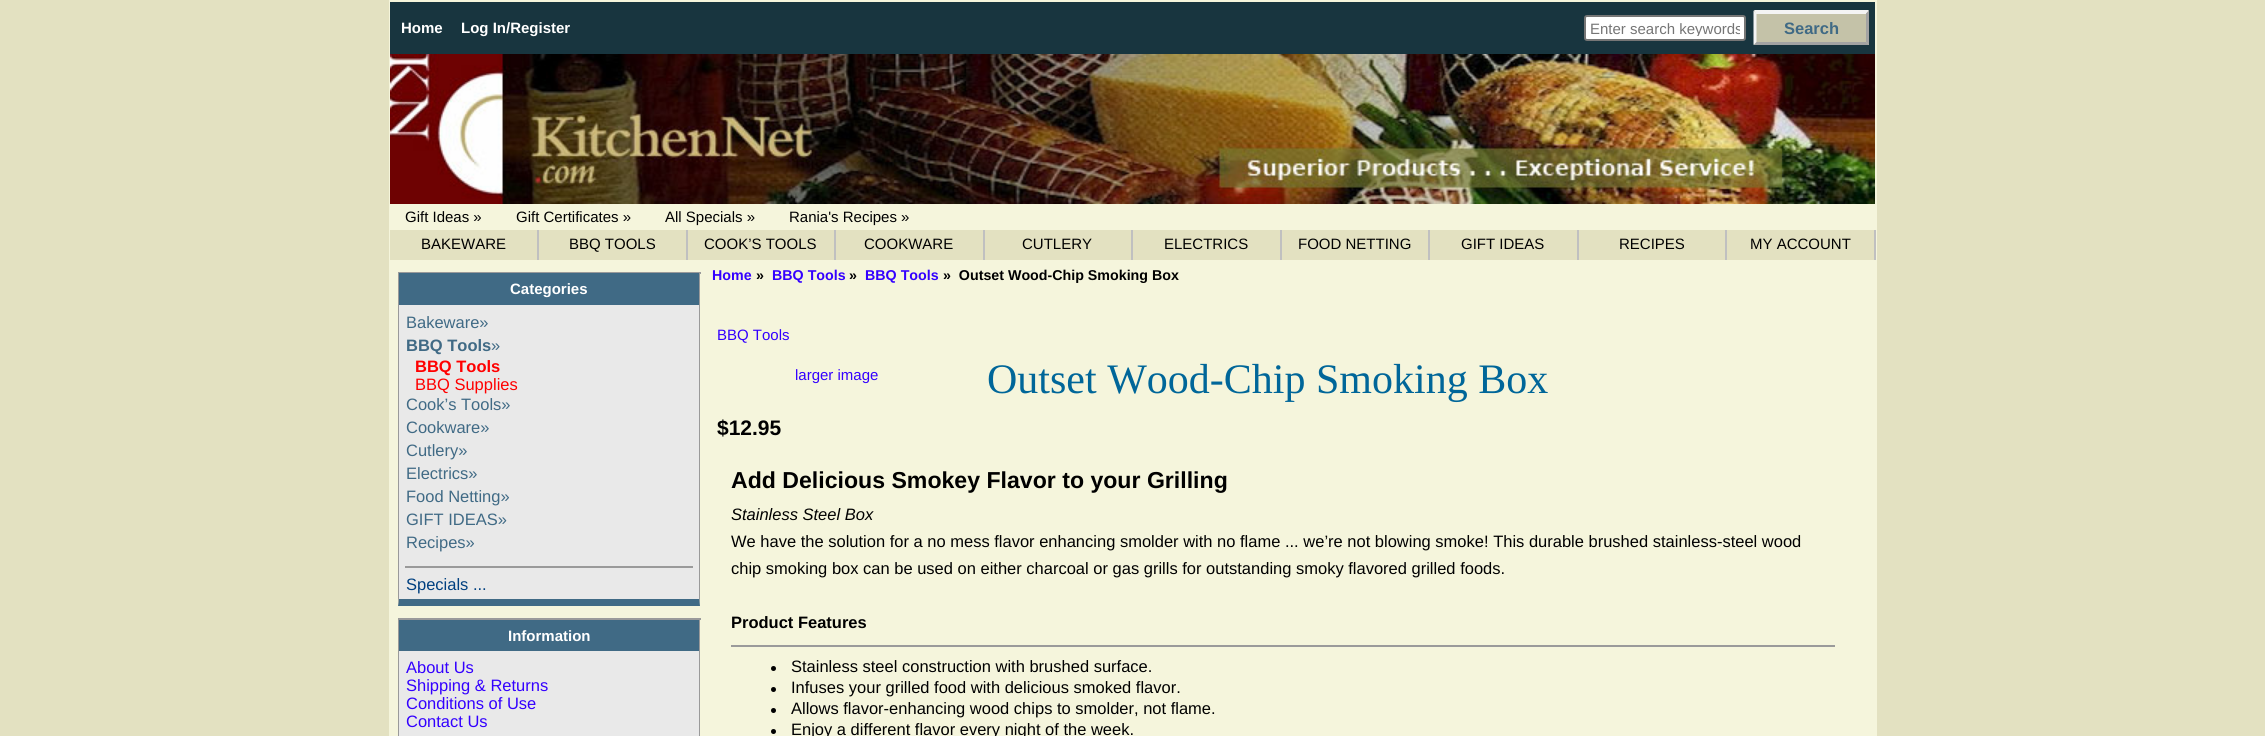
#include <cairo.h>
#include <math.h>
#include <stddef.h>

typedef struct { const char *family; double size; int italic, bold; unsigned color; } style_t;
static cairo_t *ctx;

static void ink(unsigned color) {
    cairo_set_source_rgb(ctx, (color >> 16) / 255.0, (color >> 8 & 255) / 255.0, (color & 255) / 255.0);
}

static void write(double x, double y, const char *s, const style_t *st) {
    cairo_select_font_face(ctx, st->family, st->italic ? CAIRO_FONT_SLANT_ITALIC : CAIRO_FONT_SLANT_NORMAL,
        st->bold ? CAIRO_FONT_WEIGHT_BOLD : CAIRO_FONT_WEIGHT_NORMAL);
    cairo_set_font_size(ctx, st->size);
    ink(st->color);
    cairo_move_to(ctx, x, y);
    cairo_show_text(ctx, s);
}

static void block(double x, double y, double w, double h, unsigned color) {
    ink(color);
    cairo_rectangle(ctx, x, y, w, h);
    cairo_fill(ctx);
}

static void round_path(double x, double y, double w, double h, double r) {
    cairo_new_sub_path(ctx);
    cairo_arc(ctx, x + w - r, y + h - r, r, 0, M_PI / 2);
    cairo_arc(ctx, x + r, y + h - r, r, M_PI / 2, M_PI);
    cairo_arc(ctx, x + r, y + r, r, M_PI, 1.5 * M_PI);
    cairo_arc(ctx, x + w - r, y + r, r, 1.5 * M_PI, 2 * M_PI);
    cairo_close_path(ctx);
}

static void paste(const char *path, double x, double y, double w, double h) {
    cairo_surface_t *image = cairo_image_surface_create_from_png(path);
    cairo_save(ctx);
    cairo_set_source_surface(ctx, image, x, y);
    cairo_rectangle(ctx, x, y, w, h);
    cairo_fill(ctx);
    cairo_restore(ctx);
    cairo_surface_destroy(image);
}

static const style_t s1 = {"Liberation Sans", 15, 0, 1, 0xffffff};
static const style_t s2 = {"Liberation Sans", 15, 0, 0, 0x757575};
static const style_t s3 = {"Liberation Sans", 16.5, 0, 1, 0x406a85};
static const style_t s4 = {"Liberation Sans", 15, 0, 0, 0x000000};
static const style_t s5 = {"Liberation Sans", 16.5, 0, 0, 0x406a85};
static const style_t s6 = {"Liberation Sans", 16.5, 0, 1, 0xff0000};
static const style_t s7 = {"Liberation Sans", 16.5, 0, 0, 0xff0000};
static const style_t s8 = {"Liberation Sans", 16.5, 0, 0, 0x004080};
static const style_t s9 = {"Liberation Sans", 16.5, 0, 0, 0x3300ff};
static const style_t s10 = {"Liberation Sans", 14.25, 0, 1, 0x3300ff};
static const style_t s11 = {"Liberation Sans", 14.25, 0, 1, 0x000000};
static const style_t s12 = {"Liberation Sans", 15, 0, 0, 0x3300ff};
static const style_t s13 = {"Liberation Serif", 42, 0, 0, 0x006699};
static const style_t s14 = {"Liberation Sans", 21, 0, 1, 0x000000};
static const style_t s15 = {"Liberation Sans", 23.1, 0, 1, 0x000000};
static const style_t s16 = {"Liberation Sans", 16.5, 1, 0, 0x000000};
static const style_t s17 = {"Liberation Sans", 16.5, 0, 0, 0x000000};
static const style_t s18 = {"Liberation Sans", 16.5, 0, 1, 0x000000};

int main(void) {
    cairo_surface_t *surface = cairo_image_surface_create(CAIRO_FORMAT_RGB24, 2265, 736);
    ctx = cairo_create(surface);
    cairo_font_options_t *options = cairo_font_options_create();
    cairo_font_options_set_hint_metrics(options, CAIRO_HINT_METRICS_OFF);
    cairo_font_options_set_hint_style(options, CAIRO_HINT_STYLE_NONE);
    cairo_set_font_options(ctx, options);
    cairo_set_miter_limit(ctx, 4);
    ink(0xe3e1c1);
    cairo_paint(ctx);
    block(389, 0, 1488, 736, 0xf5f5dc);
    block(390, 2, 1485, 52, 0x18353f);
    write(401, 33, "Home", &s1);
    write(461, 33, "Log In/Register", &s1);
    round_path(1585, 16, 160, 24, 2);
    cairo_fill_preserve(ctx);
    ink(0x767676);
    cairo_stroke(ctx);
    cairo_save(ctx);
    cairo_rectangle(ctx, 1590, 20, 150, 16);
    cairo_clip(ctx);
    write(1590, 34, "Enter search keywords", &s2);
    cairo_restore(ctx);
    block(1754, 11, 115, 34, 0xc4c2a8);
    ink(0xf4f4f4);
    cairo_new_path(ctx);
    cairo_move_to(ctx, 1754, 10);
    cairo_line_to(ctx, 1869, 10);
    cairo_line_to(ctx, 1866, 14);
    cairo_line_to(ctx, 1756, 14);
    cairo_close_path(ctx);
    cairo_fill(ctx);
    ink(0xa3a3a3);
    cairo_new_path(ctx);
    cairo_move_to(ctx, 1869, 10.5);
    cairo_line_to(ctx, 1869, 45);
    cairo_line_to(ctx, 1866, 42);
    cairo_line_to(ctx, 1866, 13.5);
    cairo_close_path(ctx);
    cairo_fill(ctx);
    cairo_new_path(ctx);
    cairo_move_to(ctx, 1869, 45);
    cairo_line_to(ctx, 1754, 45);
    cairo_line_to(ctx, 1756, 42);
    cairo_line_to(ctx, 1866, 42);
    cairo_close_path(ctx);
    cairo_fill(ctx);
    ink(0xf4f4f4);
    cairo_new_path(ctx);
    cairo_move_to(ctx, 1753.5, 45);
    cairo_line_to(ctx, 1753.5, 10.5);
    cairo_line_to(ctx, 1756.5, 13.5);
    cairo_line_to(ctx, 1756.5, 42);
    cairo_close_path(ctx);
    cairo_fill(ctx);
    write(1784, 34, "Search", &s3);
    paste("pic1.png", 390, 54, 1485, 150);
    write(405, 222, "Gift Ideas »", &s4);
    write(516, 222, "Gift Certificates »", &s4);
    write(665, 222, "All Specials »", &s4);
    write(789, 222, "Rania's Recipes »", &s4);
    block(390, 230, 1484, 30, 0xe3e1c1);
    block(537, 230, 2, 30, 0xc0c0c0);
    write(421, 249, "BAKEWARE", &s4);
    block(686, 230, 2, 30, 0xc0c0c0);
    write(569, 249, "BBQ TOOLS", &s4);
    block(834, 230, 2, 30, 0xc0c0c0);
    write(704, 249, "COOK’S TOOLS", &s4);
    block(983, 230, 2, 30, 0xc0c0c0);
    write(864, 249, "COOKWARE", &s4);
    block(1131, 230, 2, 30, 0xc0c0c0);
    write(1022, 249, "CUTLERY", &s4);
    block(1280, 230, 2, 30, 0xc0c0c0);
    write(1164, 249, "ELECTRICS", &s4);
    block(1428, 230, 2, 30, 0xc0c0c0);
    write(1298, 249, "FOOD NETTING", &s4);
    block(1577, 230, 2, 30, 0xc0c0c0);
    write(1461, 249, "GIFT IDEAS", &s4);
    block(1725, 230, 2, 30, 0xc0c0c0);
    write(1619, 249, "RECIPES", &s4);
    block(1874, 230, 2, 30, 0xc0c0c0);
    write(1750, 249, "MY ACCOUNT", &s4);
    block(398, 272, 303, 2, 0x9a9a9a);
    cairo_new_path(ctx);
    cairo_move_to(ctx, 700, 272);
    cairo_line_to(ctx, 700, 606);
    cairo_line_to(ctx, 699, 598);
    cairo_line_to(ctx, 699, 273);
    cairo_close_path(ctx);
    cairo_fill(ctx);
    ink(0x406a85);
    cairo_new_path(ctx);
    cairo_move_to(ctx, 700, 606);
    cairo_line_to(ctx, 398, 606);
    cairo_line_to(ctx, 399, 598);
    cairo_line_to(ctx, 699, 598);
    cairo_close_path(ctx);
    cairo_fill(ctx);
    ink(0x9a9a9a);
    cairo_new_path(ctx);
    cairo_move_to(ctx, 398, 606);
    cairo_line_to(ctx, 398, 272);
    cairo_line_to(ctx, 399, 273);
    cairo_line_to(ctx, 399, 598);
    cairo_close_path(ctx);
    cairo_fill(ctx);
    block(399, 273, 300, 32, 0x406a85);
    write(510, 294, "Categories", &s1);
    block(399, 305, 300, 294, 0xe9e9e9);
    write(406, 328, "Bakeware»", &s5);
    write(406, 351, "BBQ Tools", &s3);
    write(491, 351, "»", &s5);
    write(415, 372, "BBQ Tools", &s6);
    write(415, 390, "BBQ Supplies", &s7);
    write(406, 410, "Cook’s Tools»", &s5);
    write(406, 433, "Cookware»", &s5);
    write(406, 456, "Cutlery»", &s5);
    write(406, 479, "Electrics»", &s5);
    write(406, 502, "Food Netting»", &s5);
    write(406, 525, "GIFT IDEAS»", &s5);
    write(406, 548, "Recipes»", &s5);
    block(405, 566, 288, 2, 0x9a9a9a);
    write(406, 590, "Specials ...", &s8);
    block(398, 618, 303, 2, 0x9a9a9a);
    cairo_new_path(ctx);
    cairo_move_to(ctx, 700, 618);
    cairo_line_to(ctx, 700, 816);
    cairo_line_to(ctx, 699, 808);
    cairo_line_to(ctx, 699, 620);
    cairo_close_path(ctx);
    cairo_fill(ctx);
    cairo_new_path(ctx);
    cairo_move_to(ctx, 398, 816);
    cairo_line_to(ctx, 398, 618);
    cairo_line_to(ctx, 399, 620);
    cairo_line_to(ctx, 399, 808);
    cairo_close_path(ctx);
    cairo_fill(ctx);
    block(399, 620, 300, 31, 0x406a85);
    write(508, 641, "Information", &s1);
    block(399, 651, 300, 85, 0xe9e9e9);
    write(406, 673, "About Us", &s9);
    write(406, 691, "Shipping & Returns", &s9);
    write(406, 709, "Conditions of Use", &s9);
    write(406, 727, "Contact Us", &s9);
    write(712, 280, "Home", &s10);
    write(756, 280, "»", &s11);
    write(772, 280, "BBQ Tools", &s10);
    write(849, 280, "»", &s11);
    write(865, 280, "BBQ Tools", &s10);
    write(943, 280, "»  Outset Wood-Chip Smoking Box", &s11);
    write(717, 340, "BBQ Tools", &s12);
    write(795, 380, "larger image", &s12);
    write(987, 393, "Outset Wood-Chip Smoking Box", &s13);
    write(717, 435, "$12.95", &s14);
    write(731, 488, "Add Delicious Smokey Flavor to your Grilling", &s15);
    write(731, 520, "Stainless Steel Box", &s16);
    write(731, 547, "We have the solution for a no mess flavor enhancing smolder with no flame ... we’re not blowing smoke! This durable brushed stainless-steel wood", &s17);
    write(731, 574, "chip smoking box can be used on either charcoal or gas grills for outstanding smoky flavored grilled foods.", &s17);
    write(731, 628, "Product Features", &s18);
    block(731, 645, 1104, 2, 0x9a9a9a);
    ink(0x000000);
    cairo_new_path(ctx);
    cairo_arc(ctx, 773.5, 668.5, 2.5, 0, 2 * M_PI);
    cairo_fill(ctx);
    write(791, 672, "Stainless steel construction with brushed surface.", &s17);
    cairo_new_path(ctx);
    cairo_arc(ctx, 773.5, 689.5, 2.5, 0, 2 * M_PI);
    cairo_fill(ctx);
    write(791, 693, "Infuses your grilled food with delicious smoked flavor.", &s17);
    cairo_new_path(ctx);
    cairo_arc(ctx, 773.5, 710.5, 2.5, 0, 2 * M_PI);
    cairo_fill(ctx);
    write(791, 714, "Allows flavor-enhancing wood chips to smolder, not flame.", &s17);
    cairo_new_path(ctx);
    cairo_arc(ctx, 773.5, 731.5, 2.5, 0, 2 * M_PI);
    cairo_fill(ctx);
    write(791, 735, "Enjoy a different flavor every night of the week.", &s17);
    cairo_surface_write_to_png(surface, "screenshot.png");
    cairo_font_options_destroy(options);
    cairo_destroy(ctx);
    cairo_surface_destroy(surface);
    return 0;
}
